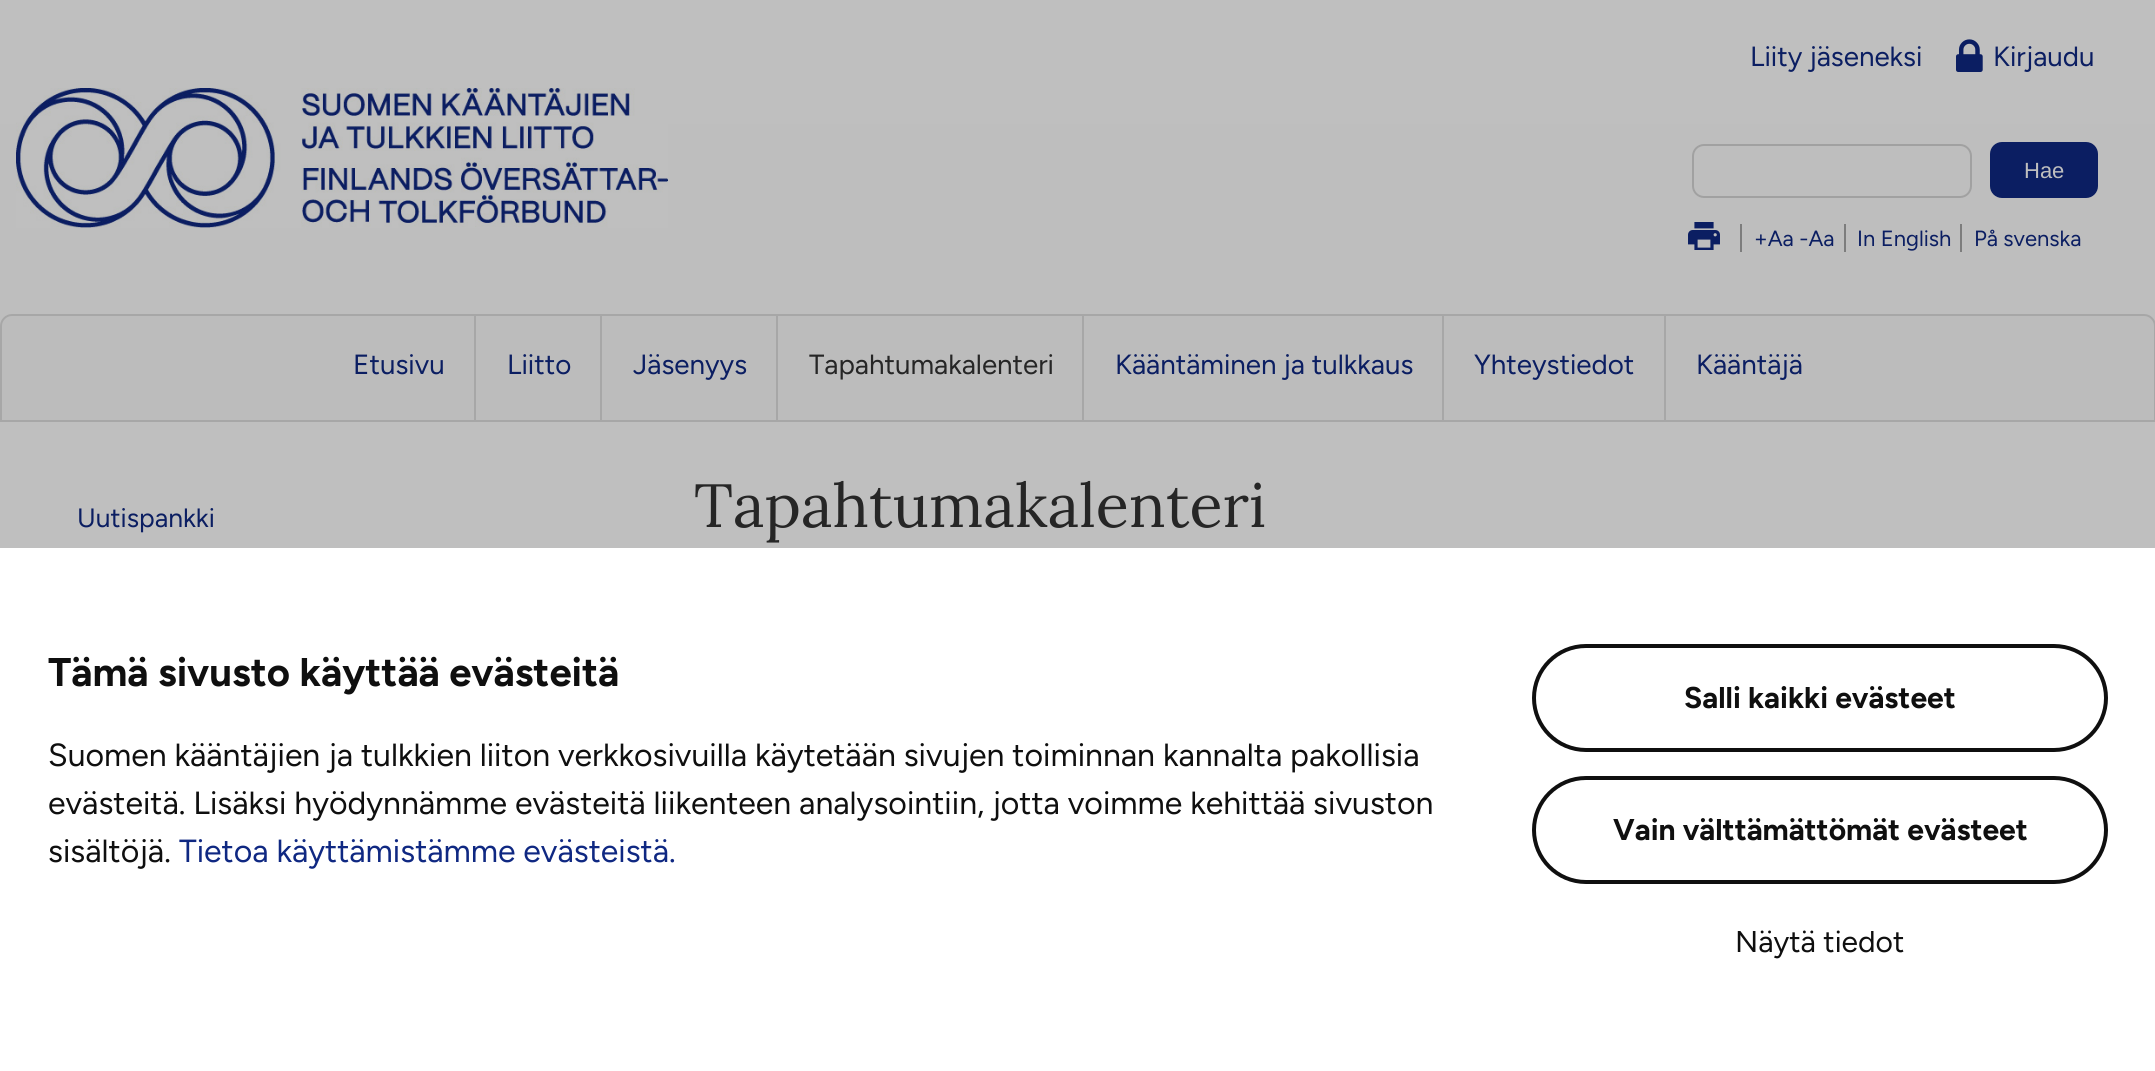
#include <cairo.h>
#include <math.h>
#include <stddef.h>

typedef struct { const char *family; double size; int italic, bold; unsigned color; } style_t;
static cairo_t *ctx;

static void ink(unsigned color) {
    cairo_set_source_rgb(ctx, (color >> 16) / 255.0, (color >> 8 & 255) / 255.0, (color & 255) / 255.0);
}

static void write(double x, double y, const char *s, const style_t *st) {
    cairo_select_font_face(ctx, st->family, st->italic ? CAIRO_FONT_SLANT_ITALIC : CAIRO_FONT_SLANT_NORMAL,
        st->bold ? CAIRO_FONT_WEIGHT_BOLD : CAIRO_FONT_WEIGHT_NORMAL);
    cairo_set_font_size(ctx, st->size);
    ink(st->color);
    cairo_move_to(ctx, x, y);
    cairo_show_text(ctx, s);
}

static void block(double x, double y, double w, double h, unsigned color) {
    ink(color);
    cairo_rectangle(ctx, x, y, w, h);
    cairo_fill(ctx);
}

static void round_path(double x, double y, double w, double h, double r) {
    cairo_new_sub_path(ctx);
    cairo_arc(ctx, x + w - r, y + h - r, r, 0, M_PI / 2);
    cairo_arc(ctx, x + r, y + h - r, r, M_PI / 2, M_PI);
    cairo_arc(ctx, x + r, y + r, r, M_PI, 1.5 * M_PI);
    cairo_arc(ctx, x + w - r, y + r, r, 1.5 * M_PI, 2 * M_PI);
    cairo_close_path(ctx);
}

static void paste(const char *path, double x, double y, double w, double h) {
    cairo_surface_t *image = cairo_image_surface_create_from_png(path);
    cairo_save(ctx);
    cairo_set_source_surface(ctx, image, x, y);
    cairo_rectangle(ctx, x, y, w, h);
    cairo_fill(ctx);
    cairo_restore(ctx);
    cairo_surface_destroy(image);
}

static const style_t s1 = {"Figtree", 27.75, 0, 0, 0x0b1e62};
static const style_t s2 = {"Liberation Sans", 22, 0, 0, 0xbfbfbf};
static const style_t s3 = {"Figtree", 22, 0, 0, 0x0b1e62};
static const style_t s4 = {"Figtree", 27.75, 0, 0, 0x262626};
static const style_t s5 = {"Figtree", 26.5, 0, 0, 0x0b1e62};
static const style_t s6 = {"Lora", 61, 0, 0, 0x262626};
static const style_t s7 = {"Figtree", 40, 0, 1, 0x0f0f0f};
static const style_t s8 = {"Figtree", 32, 0, 0, 0x0f0f0f};
static const style_t s9 = {"Figtree", 32, 0, 0, 0x0f2882};
static const style_t s10 = {"Figtree", 30, 0, 1, 0x0f0f0f};
static const style_t s11 = {"Figtree", 30, 0, 0, 0x0f0f0f};

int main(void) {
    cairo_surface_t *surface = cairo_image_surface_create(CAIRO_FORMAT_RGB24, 2155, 1071);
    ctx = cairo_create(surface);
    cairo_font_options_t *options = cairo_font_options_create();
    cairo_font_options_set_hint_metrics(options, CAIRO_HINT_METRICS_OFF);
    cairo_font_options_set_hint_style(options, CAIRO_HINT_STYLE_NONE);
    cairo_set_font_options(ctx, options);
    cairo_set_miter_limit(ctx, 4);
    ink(0xffffff);
    cairo_paint(ctx);
    paste("pic1.png", 0, 0, 2155, 326);
    write(1750, 66, "Liity jäseneksi", &s1);
    paste("pic2.png", 1956, 39, 27, 33);
    write(1993, 66, "Kirjaudu", &s1);
    paste("pic3.png", 16, 88, 652, 140);
    round_path(1693, 145, 278, 52, 11);
    ink(0xa1a1a1);
    cairo_stroke(ctx);
    ink(0x0b1e62);
    round_path(1990, 142, 108, 56, 12);
    cairo_fill(ctx);
    write(2024, 178, "Hae", &s2);
    paste("pic4.png", 1688, 222, 32, 28);
    write(1754, 246, "+Aa -Aa", &s3);
    block(1740, 224, 2, 28, 0x7d7d7d);
    write(1857, 246, "In English", &s3);
    block(1844, 224, 2, 28, 0x7d7d7d);
    write(1974, 246, "På svenska", &s3);
    block(1960, 224, 2, 28, 0x7d7d7d);
    ink(0xbcbcbc);
    cairo_new_path(ctx);
    cairo_move_to(ctx, 12, 315);
    cairo_line_to(ctx, 2144, 315);
    cairo_curve_to(ctx, 2150, 315, 2155, 320, 2155, 326);
    cairo_line_to(ctx, 2155, 421);
    cairo_line_to(ctx, 1, 421);
    cairo_line_to(ctx, 1, 326);
    cairo_curve_to(ctx, 1, 320, 6, 315, 12, 315);
    cairo_close_path(ctx);
    cairo_fill_preserve(ctx);
    ink(0xa7a7a7);
    cairo_stroke(ctx);
    block(474, 316, 2, 104, 0xa7a7a7);
    write(353, 374, "Etusivu", &s1);
    block(600, 316, 2, 104, 0xa7a7a7);
    write(507, 374, "Liitto", &s1);
    block(776, 316, 2, 104, 0xa7a7a7);
    write(633, 374, "Jäsenyys", &s1);
    block(1082, 316, 2, 104, 0xa7a7a7);
    write(809, 374, "Tapahtumakalenteri", &s4);
    block(1442, 316, 2, 104, 0xa7a7a7);
    write(1115, 374, "Kääntäminen ja tulkkaus", &s1);
    block(1664, 316, 2, 104, 0xa7a7a7);
    write(1474, 374, "Yhteystiedot", &s1);
    write(1696, 374, "Kääntäjä", &s1);
    block(0, 422, 2155, 126, 0xbfbfbf);
    write(77, 527, "Uutispankki", &s5);
    write(694, 527, "Tapahtumakalenteri", &s6);
    write(48, 686, "Tämä sivusto käyttää evästeitä", &s7);
    write(48, 766, "Suomen kääntäjien ja tulkkien liiton verkkosivuilla käytetään sivujen toiminnan kannalta pakollisia", &s8);
    write(48, 814, "evästeitä. Lisäksi hyödynnämme evästeitä liikenteen analysointiin, jotta voimme kehittää sivuston", &s8);
    write(48, 862, "sisältöjä.", &s8);
    write(179, 862, "Tietoa käyttämistämme evästeistä.", &s9);
    round_path(1534, 646, 572, 104, 52);
    ink(0x0f0f0f);
    cairo_set_line_width(ctx, 4);
    cairo_stroke(ctx);
    write(1684, 708, "Salli kaikki evästeet", &s10);
    round_path(1534, 778, 572, 104, 52);
    cairo_stroke(ctx);
    write(1613, 840, "Vain välttämättömät evästeet", &s10);
    write(1735, 952, "Näytä tiedot", &s11);
    cairo_surface_write_to_png(surface, "screenshot.png");
    cairo_font_options_destroy(options);
    cairo_destroy(ctx);
    cairo_surface_destroy(surface);
    return 0;
}
